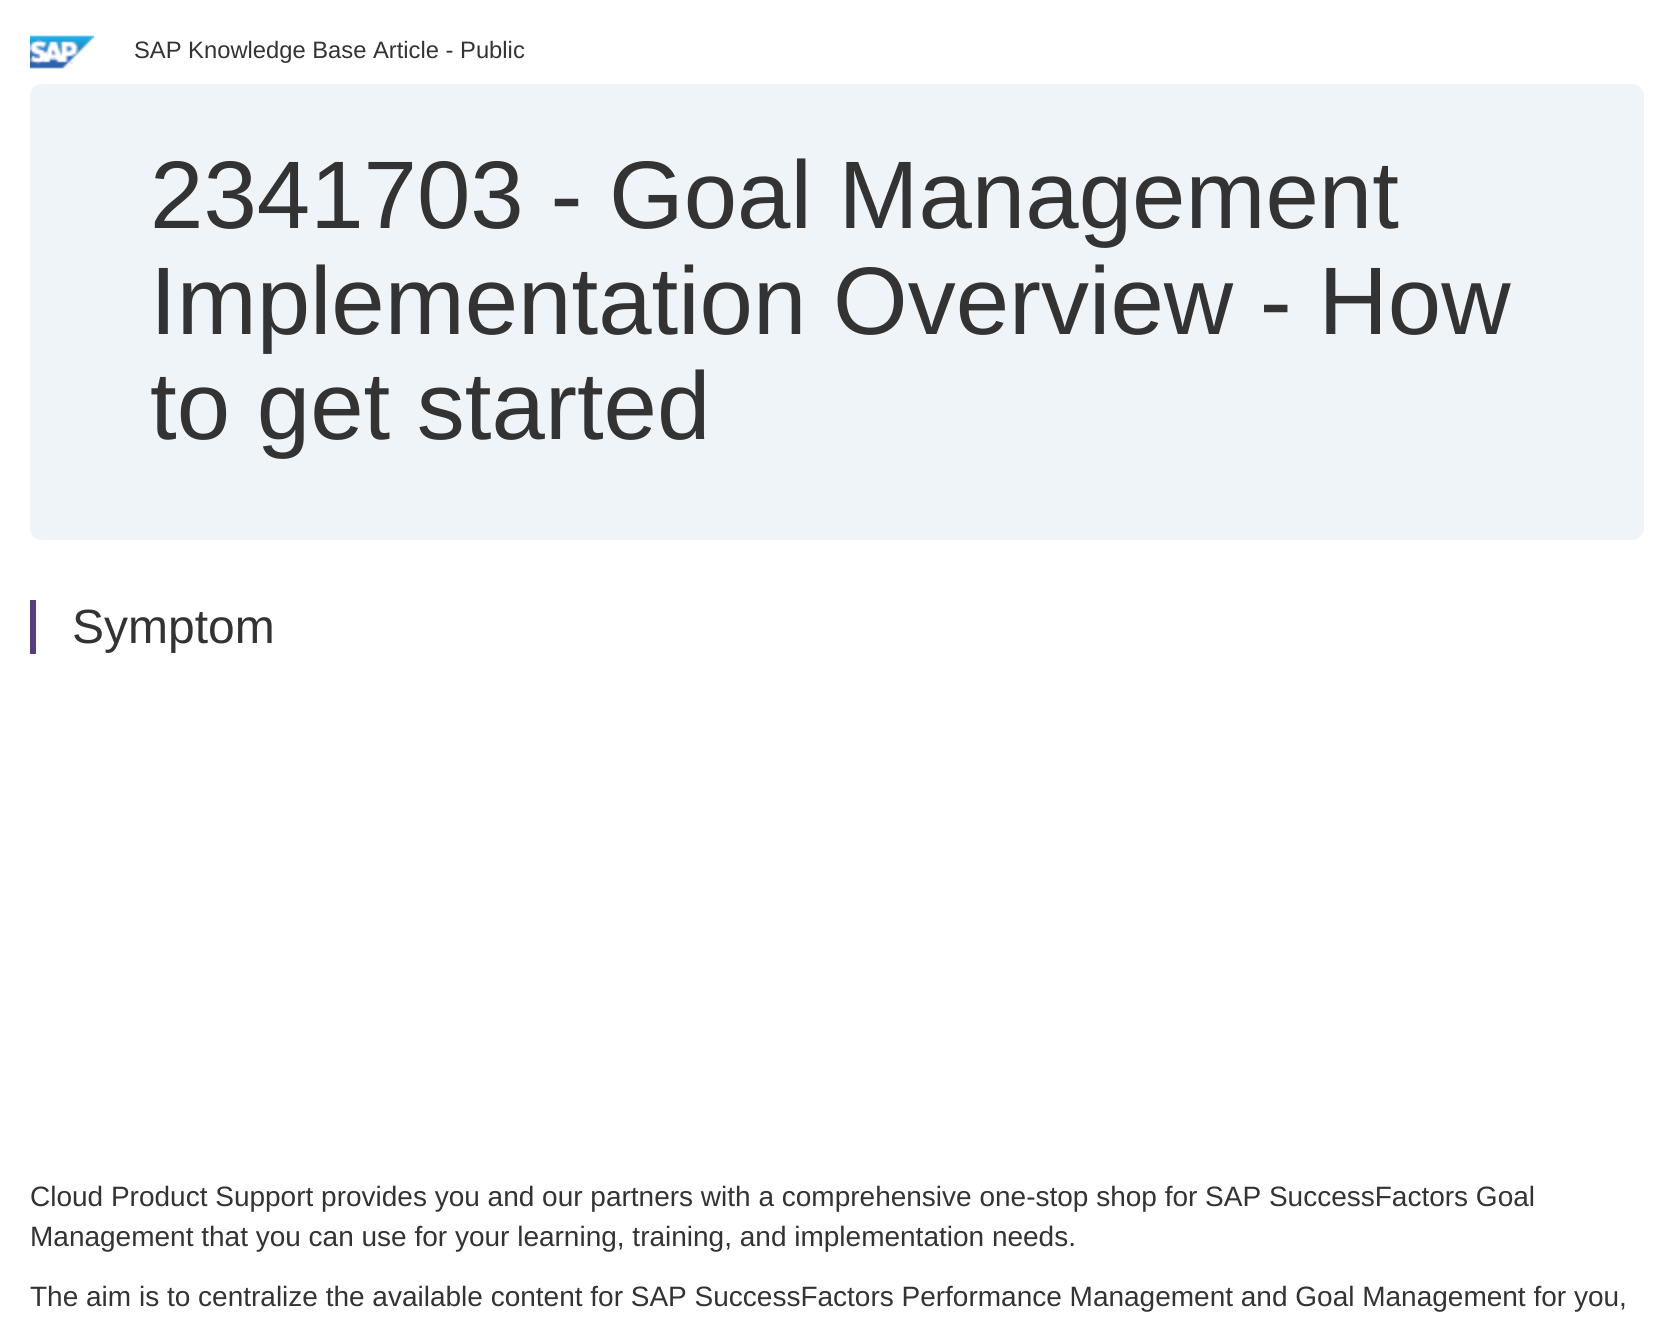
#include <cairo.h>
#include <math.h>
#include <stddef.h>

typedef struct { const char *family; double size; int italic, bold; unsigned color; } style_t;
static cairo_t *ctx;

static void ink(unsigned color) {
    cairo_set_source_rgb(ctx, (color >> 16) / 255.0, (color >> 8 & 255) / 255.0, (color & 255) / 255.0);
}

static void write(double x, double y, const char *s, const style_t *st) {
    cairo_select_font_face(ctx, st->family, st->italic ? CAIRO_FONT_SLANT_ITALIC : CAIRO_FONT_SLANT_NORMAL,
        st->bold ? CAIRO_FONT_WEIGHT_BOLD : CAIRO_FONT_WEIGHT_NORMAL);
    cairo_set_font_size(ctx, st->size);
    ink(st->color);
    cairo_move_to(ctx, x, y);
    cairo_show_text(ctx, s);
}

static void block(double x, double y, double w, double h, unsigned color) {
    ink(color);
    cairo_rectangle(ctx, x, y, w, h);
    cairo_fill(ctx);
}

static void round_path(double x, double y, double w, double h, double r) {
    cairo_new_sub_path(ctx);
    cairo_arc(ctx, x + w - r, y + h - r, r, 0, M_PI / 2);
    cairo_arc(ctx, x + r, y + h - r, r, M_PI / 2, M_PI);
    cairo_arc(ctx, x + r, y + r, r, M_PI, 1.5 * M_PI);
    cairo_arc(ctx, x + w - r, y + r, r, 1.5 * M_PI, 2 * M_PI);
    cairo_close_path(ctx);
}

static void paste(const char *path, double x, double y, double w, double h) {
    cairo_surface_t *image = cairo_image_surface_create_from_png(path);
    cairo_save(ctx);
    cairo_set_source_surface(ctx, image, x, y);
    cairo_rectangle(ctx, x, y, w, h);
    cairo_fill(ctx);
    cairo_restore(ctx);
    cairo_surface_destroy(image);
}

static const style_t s1 = {"Liberation Sans", 23.75, 0, 0, 0x333333};
static const style_t s2 = {"Liberation Sans", 96, 0, 0, 0x333333};
static const style_t s3 = {"Liberation Sans", 48, 0, 0, 0x333333};
static const style_t s4 = {"Liberation Sans", 28, 0, 0, 0x333333};

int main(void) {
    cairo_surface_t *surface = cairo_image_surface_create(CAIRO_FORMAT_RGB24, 1673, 1328);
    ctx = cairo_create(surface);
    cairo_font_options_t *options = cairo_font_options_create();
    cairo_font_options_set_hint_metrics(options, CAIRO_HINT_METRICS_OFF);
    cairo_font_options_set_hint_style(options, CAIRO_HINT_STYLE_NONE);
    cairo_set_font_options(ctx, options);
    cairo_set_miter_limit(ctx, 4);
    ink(0xffffff);
    cairo_paint(ctx);
    paste("pic1.png", 30, 35, 64, 34);
    write(134, 58, "SAP Knowledge Base Article - Public", &s1);
    ink(0xeff4f9);
    round_path(30, 84, 1614, 456, 12);
    cairo_fill(ctx);
    write(150, 228, "2341703 - Goal Management", &s2);
    write(150, 334, "Implementation Overview - How", &s2);
    write(150, 439, "to get started", &s2);
    block(30, 600, 6, 54, 0x563d7c);
    write(72, 643, "Symptom", &s3);
    write(30, 1206, "Cloud Product Support provides you and our partners with a comprehensive one-stop shop for SAP SuccessFactors Goal", &s4);
    write(30, 1246, "Management that you can use for your learning, training, and implementation needs.", &s4);
    write(30, 1306, "The aim is to centralize the available content for SAP SuccessFactors Performance Management and Goal Management for you,", &s4);
    cairo_surface_write_to_png(surface, "screenshot.png");
    cairo_font_options_destroy(options);
    cairo_destroy(ctx);
    cairo_surface_destroy(surface);
    return 0;
}
